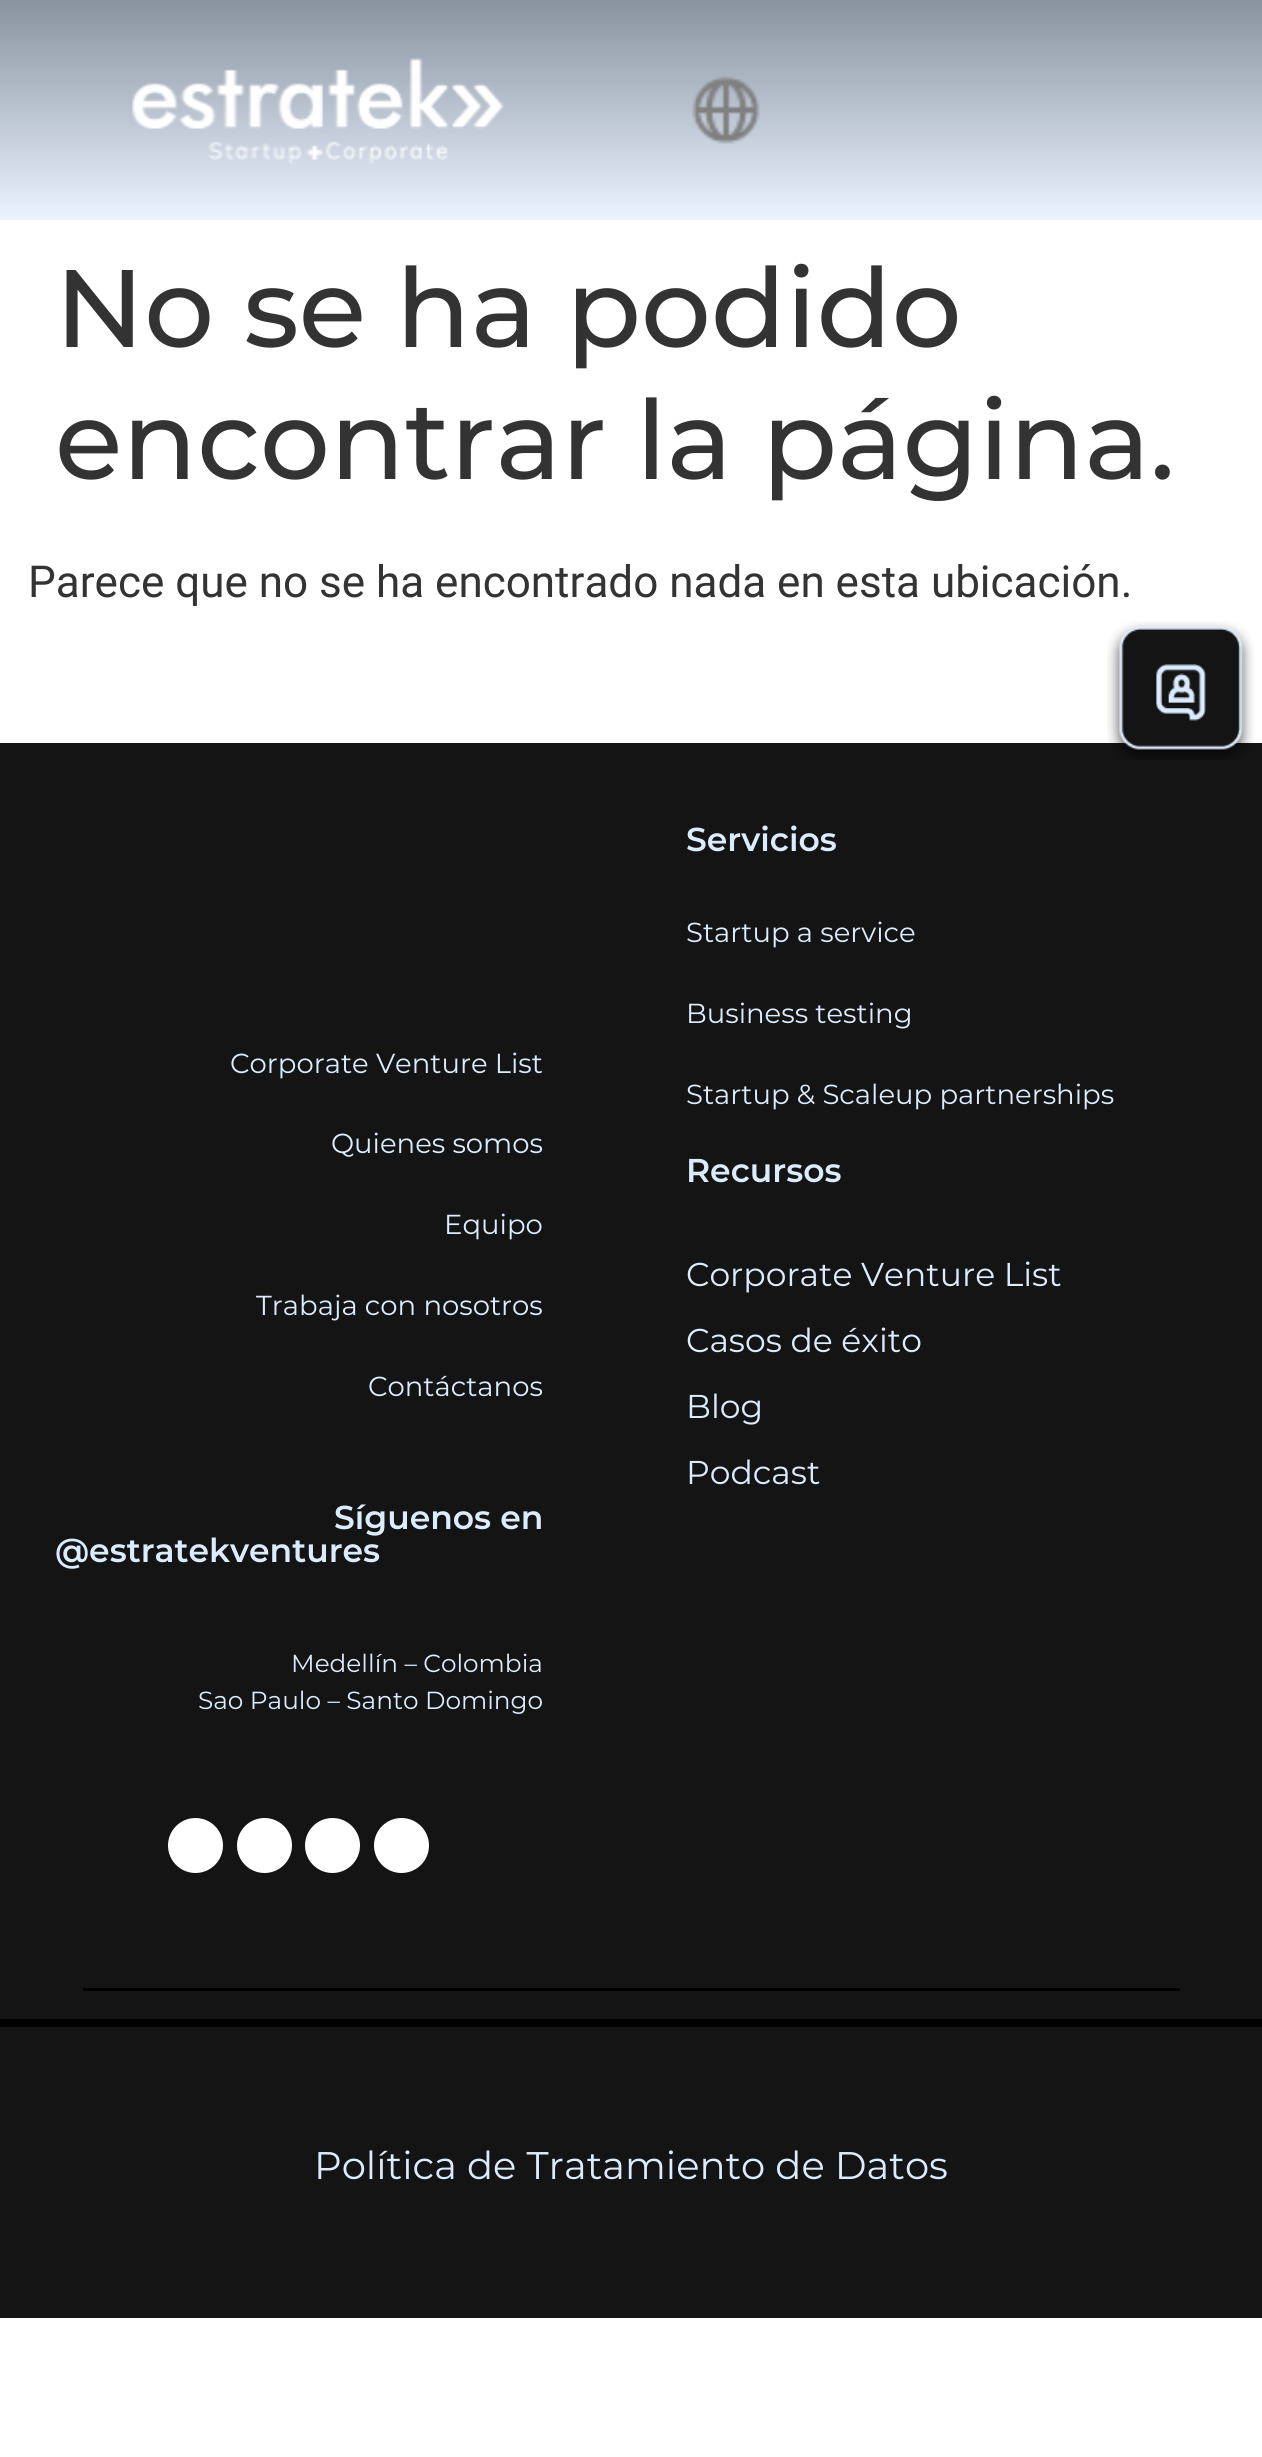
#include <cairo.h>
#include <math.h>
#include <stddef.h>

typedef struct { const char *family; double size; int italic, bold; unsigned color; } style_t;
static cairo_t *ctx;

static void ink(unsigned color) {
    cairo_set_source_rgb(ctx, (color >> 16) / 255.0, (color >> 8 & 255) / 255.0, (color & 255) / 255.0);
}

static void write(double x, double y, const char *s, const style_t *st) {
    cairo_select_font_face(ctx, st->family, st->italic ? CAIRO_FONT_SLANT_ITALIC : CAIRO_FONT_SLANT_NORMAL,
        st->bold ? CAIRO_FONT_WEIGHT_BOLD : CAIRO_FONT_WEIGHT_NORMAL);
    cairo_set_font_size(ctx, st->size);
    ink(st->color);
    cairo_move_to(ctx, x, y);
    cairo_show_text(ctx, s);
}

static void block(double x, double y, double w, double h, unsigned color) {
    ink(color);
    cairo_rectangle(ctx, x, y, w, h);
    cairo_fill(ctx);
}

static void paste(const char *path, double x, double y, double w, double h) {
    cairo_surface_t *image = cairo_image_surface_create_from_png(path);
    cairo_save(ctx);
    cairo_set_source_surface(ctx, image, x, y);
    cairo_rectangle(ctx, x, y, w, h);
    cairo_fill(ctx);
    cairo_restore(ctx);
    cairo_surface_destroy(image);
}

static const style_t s1 = {"Montserrat Medium", 110, 0, 0, 0x333333};
static const style_t s2 = {"Roboto", 44, 0, 0, 0x333333};
static const style_t s3 = {"Montserrat", 27.5, 0, 0, 0xdcecff};
static const style_t s4 = {"Montserrat SemiBold", 33, 0, 0, 0xdcecff};
static const style_t s5 = {"Montserrat", 24.75, 0, 0, 0xdcecff};
static const style_t s6 = {"Montserrat", 33, 0, 0, 0xdcecff};
static const style_t s7 = {"Montserrat", 38.5, 0, 0, 0xdcecff};

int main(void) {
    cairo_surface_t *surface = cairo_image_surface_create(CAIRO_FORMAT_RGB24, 1262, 2457);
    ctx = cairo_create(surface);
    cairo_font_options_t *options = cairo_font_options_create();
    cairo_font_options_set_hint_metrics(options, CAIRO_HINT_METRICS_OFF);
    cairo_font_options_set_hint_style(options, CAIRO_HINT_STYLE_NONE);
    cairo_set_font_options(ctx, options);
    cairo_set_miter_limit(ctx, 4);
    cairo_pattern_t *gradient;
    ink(0xffffff);
    cairo_paint(ctx);
    gradient = cairo_pattern_create_linear(631, 0, 631, 220);
    cairo_pattern_add_color_stop_rgba(gradient, 0, 0.537, 0.576, 0.624, 1);
    cairo_pattern_add_color_stop_rgba(gradient, 1, 0.918, 0.953, 1, 1);
    cairo_set_source(ctx, gradient);
    cairo_pattern_destroy(gradient);
    cairo_rectangle(ctx, 0, 0, 1262, 220);
    cairo_fill(ctx);
    paste("pic1.png", 132, 58, 372, 106);
    paste("pic2.png", 692, 76, 68, 68);
    write(55, 347, "No se ha podido", &s1);
    write(55, 479, "encontrar la página.", &s1);
    write(28, 597, "Parece que no se ha encontrado nada en esta ubicación.", &s2);
    block(0, 743, 1262, 1276, 0x141414);
    paste("pic3.png", 1107, 621, 147, 139);
    write(230, 1073, "Corporate Venture List", &s3);
    write(331, 1153, "Quienes somos", &s3);
    write(444, 1234, "Equipo", &s3);
    write(256, 1315, "Trabaja con nosotros", &s3);
    write(368, 1396, "Contáctanos", &s3);
    write(334, 1529, "Síguenos en", &s4);
    write(55, 1562, "@estratekventures", &s4);
    write(291, 1672, "Medellín – Colombia", &s5);
    write(198, 1709, "Sao Paulo – Santo Domingo", &s5);
    ink(0xffffff);
    cairo_new_path(ctx);
    cairo_arc(ctx, 195.5, 1845.5, 27.5, 0, 2 * M_PI);
    cairo_fill(ctx);
    cairo_arc(ctx, 264.5, 1845.5, 27.5, 0, 2 * M_PI);
    cairo_fill(ctx);
    cairo_arc(ctx, 332.5, 1845.5, 27.5, 0, 2 * M_PI);
    cairo_fill(ctx);
    cairo_arc(ctx, 401.5, 1845.5, 27.5, 0, 2 * M_PI);
    cairo_fill(ctx);
    write(686, 851, "Servicios", &s4);
    write(686, 942, "Startup a service", &s3);
    write(686, 1023, "Business testing", &s3);
    write(686, 1104, "Startup & Scaleup partnerships", &s3);
    write(686, 1182, "Recursos", &s4);
    write(686, 1286, "Corporate Venture List", &s6);
    write(686, 1352, "Casos de éxito", &s6);
    write(686, 1418, "Blog", &s6);
    write(686, 1484, "Podcast", &s6);
    block(83, 1988, 1097, 3, 0x000000);
    block(0, 2027, 1262, 291, 0x141414);
    block(0, 2019, 1262, 8, 0x000000);
    write(314, 2179, "Política de Tratamiento de Datos", &s7);
    cairo_surface_write_to_png(surface, "screenshot.png");
    cairo_font_options_destroy(options);
    cairo_destroy(ctx);
    cairo_surface_destroy(surface);
    return 0;
}
